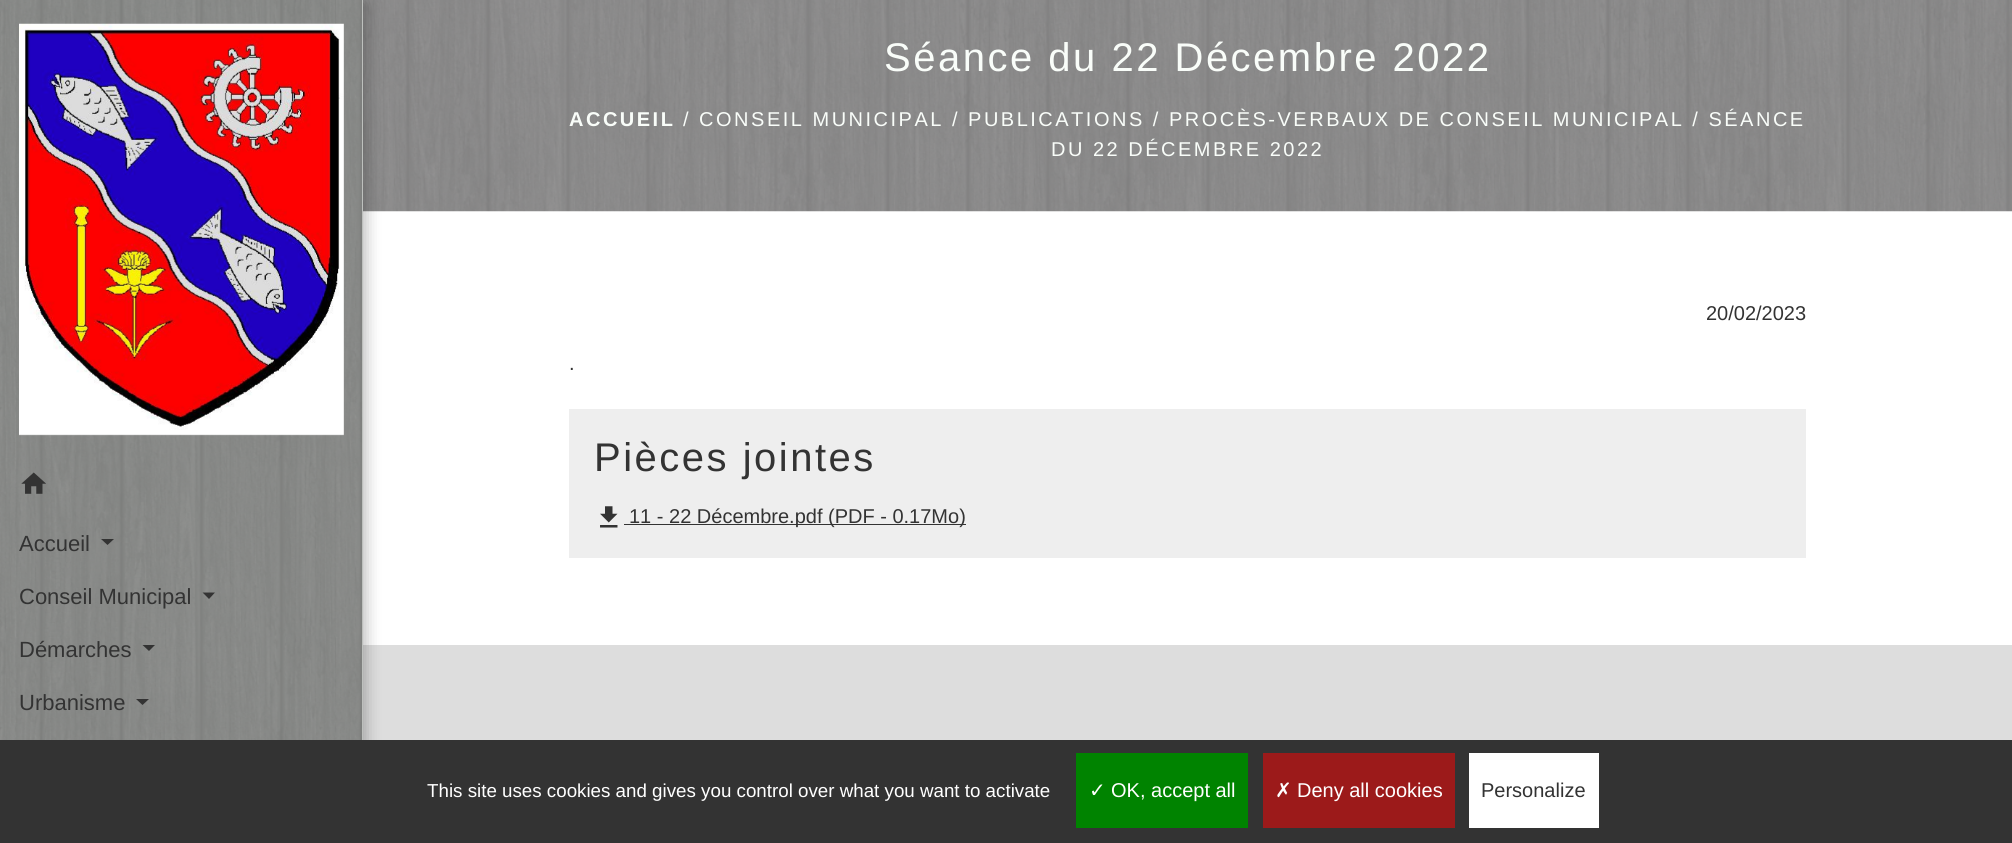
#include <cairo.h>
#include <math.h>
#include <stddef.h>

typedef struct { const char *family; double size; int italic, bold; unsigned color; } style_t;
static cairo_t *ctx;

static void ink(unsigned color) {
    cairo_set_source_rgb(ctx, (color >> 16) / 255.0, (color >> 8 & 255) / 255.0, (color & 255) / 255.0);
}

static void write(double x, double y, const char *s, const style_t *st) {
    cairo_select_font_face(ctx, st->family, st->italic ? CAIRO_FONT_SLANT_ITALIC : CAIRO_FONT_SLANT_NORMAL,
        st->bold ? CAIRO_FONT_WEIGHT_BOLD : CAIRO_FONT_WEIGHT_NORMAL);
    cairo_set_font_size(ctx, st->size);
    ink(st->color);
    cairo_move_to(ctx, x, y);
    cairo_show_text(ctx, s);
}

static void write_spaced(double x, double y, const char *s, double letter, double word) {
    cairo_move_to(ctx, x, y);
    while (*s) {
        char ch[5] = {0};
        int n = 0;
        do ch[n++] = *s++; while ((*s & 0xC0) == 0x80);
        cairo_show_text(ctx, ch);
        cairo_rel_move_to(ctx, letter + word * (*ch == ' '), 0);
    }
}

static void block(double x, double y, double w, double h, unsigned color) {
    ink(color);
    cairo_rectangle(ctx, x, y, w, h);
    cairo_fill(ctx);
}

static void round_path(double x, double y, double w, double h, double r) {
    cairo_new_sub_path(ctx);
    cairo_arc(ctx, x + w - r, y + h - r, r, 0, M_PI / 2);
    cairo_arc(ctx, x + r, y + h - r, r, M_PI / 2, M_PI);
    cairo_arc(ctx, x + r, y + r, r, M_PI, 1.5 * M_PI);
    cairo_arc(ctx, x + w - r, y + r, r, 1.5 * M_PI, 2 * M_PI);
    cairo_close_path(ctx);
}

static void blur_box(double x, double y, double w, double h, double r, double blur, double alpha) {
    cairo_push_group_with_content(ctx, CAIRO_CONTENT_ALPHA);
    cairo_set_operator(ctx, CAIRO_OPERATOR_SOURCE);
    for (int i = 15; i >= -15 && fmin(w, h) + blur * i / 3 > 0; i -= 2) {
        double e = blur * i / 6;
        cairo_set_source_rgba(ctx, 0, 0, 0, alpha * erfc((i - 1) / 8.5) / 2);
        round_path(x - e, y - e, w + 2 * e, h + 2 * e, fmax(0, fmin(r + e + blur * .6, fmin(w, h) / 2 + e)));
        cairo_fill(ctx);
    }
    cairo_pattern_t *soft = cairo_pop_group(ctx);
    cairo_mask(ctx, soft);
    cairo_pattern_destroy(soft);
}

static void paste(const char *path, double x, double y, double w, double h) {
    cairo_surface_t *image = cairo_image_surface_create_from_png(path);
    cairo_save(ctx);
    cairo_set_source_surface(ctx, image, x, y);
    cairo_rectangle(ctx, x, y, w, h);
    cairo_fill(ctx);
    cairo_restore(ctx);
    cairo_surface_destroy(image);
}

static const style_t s1 = {"Liberation Sans", 20, 0, 0, 0x333333};
static const style_t s2 = {"Liberation Sans", 22, 0, 0, 0x333333};
static const style_t s3 = {"Liberation Sans", 18.75, 0, 0, 0xffffff};
static const style_t s4 = {"DejaVu Sans", 20, 0, 0, 0xffffff};
static const style_t s5 = {"Liberation Sans", 20, 0, 0, 0xffffff};

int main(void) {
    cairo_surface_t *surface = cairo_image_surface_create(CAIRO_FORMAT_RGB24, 2012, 843);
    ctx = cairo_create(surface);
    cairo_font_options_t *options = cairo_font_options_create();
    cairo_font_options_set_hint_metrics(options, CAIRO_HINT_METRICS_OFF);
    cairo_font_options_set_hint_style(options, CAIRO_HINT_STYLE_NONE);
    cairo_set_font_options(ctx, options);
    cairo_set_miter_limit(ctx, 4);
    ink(0xffffff);
    cairo_paint(ctx);
    paste("pic1.png", 363, 0, 1649, 212);
    cairo_select_font_face(ctx, "Liberation Sans", CAIRO_FONT_SLANT_NORMAL, CAIRO_FONT_WEIGHT_NORMAL);
    cairo_set_font_size(ctx, 40);
    ink(0xf9fdf9);
    write_spaced(884, 71, "Séance du 22 Décembre 2022", 2.5, 0);
    cairo_select_font_face(ctx, "Liberation Sans", CAIRO_FONT_SLANT_NORMAL, CAIRO_FONT_WEIGHT_BOLD);
    cairo_set_font_size(ctx, 20);
    write_spaced(569, 126, "ACCUEIL", 2.5, 0);
    cairo_select_font_face(ctx, "Liberation Sans", CAIRO_FONT_SLANT_NORMAL, CAIRO_FONT_WEIGHT_NORMAL);
    write_spaced(683, 126, "/ CONSEIL MUNICIPAL / PUBLICATIONS / PROCÈS-VERBAUX DE CONSEIL MUNICIPAL / SÉANCE", 2.5, 0);
    write_spaced(1051, 156, "DU 22 DÉCEMBRE 2022", 2.5, 0);
    write(1706, 320, "20/02/2023", &s1);
    write(569, 370, ".", &s1);
    block(569, 409, 1237, 149, 0xeeeeee);
    cairo_set_font_size(ctx, 40);
    ink(0x333333);
    write_spaced(594, 471, "Pièces jointes", 2.5, 0);
    paste("pic2.png", 600, 506, 18, 22);
    block(624, 524, 342, 1, 0x333333);
    write(629, 523, "11 - 22 Décembre.pdf (PDF - 0.17Mo)", &s1);
    block(363, 645, 1649, 95, 0xdddddd);
    ink(0x000000);
    blur_box(3, 3, 362, 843, 0, 8, 0.3);
    block(0, 0, 363, 740, 0xf9fdf9);
    paste("pic3.png", 0, 0, 363, 740);
    paste("pic4.png", 19, 23, 325, 413);
    paste("pic5.png", 21, 472, 25, 22);
    write(19, 551, "Accueil", &s2);
    cairo_new_path(ctx);
    cairo_move_to(ctx, 101, 539);
    cairo_line_to(ctx, 114, 539);
    cairo_line_to(ctx, 107.5, 545);
    cairo_close_path(ctx);
    cairo_fill(ctx);
    write(19, 604, "Conseil Municipal", &s2);
    cairo_new_path(ctx);
    cairo_move_to(ctx, 202.5, 592.5);
    cairo_line_to(ctx, 215, 592.5);
    cairo_line_to(ctx, 209, 599);
    cairo_close_path(ctx);
    cairo_fill(ctx);
    write(19, 657, "Démarches", &s2);
    cairo_new_path(ctx);
    cairo_move_to(ctx, 142.5, 645);
    cairo_line_to(ctx, 155, 645);
    cairo_line_to(ctx, 149, 651);
    cairo_close_path(ctx);
    cairo_fill(ctx);
    write(19, 710, "Urbanisme", &s2);
    cairo_new_path(ctx);
    cairo_move_to(ctx, 136, 699);
    cairo_line_to(ctx, 149, 699);
    cairo_line_to(ctx, 142.5, 705);
    cairo_close_path(ctx);
    cairo_fill(ctx);
    block(0, 740, 2012, 103, 0x333333);
    write(427, 797, "This site uses cookies and gives you control over what you want to activate", &s3);
    block(1076, 753, 172, 75, 0x008300);
    write(1089, 797, "✓", &s4);
    write(1111, 797, "OK, accept all", &s5);
    block(1263, 753, 192, 75, 0x9c1a1a);
    write(1275, 797, "✗", &s4);
    write(1297, 797, "Deny all cookies", &s5);
    block(1469, 753, 130, 75, 0xffffff);
    write(1481, 797, "Personalize", &s1);
    cairo_surface_write_to_png(surface, "screenshot.png");
    cairo_font_options_destroy(options);
    cairo_destroy(ctx);
    cairo_surface_destroy(surface);
    return 0;
}
